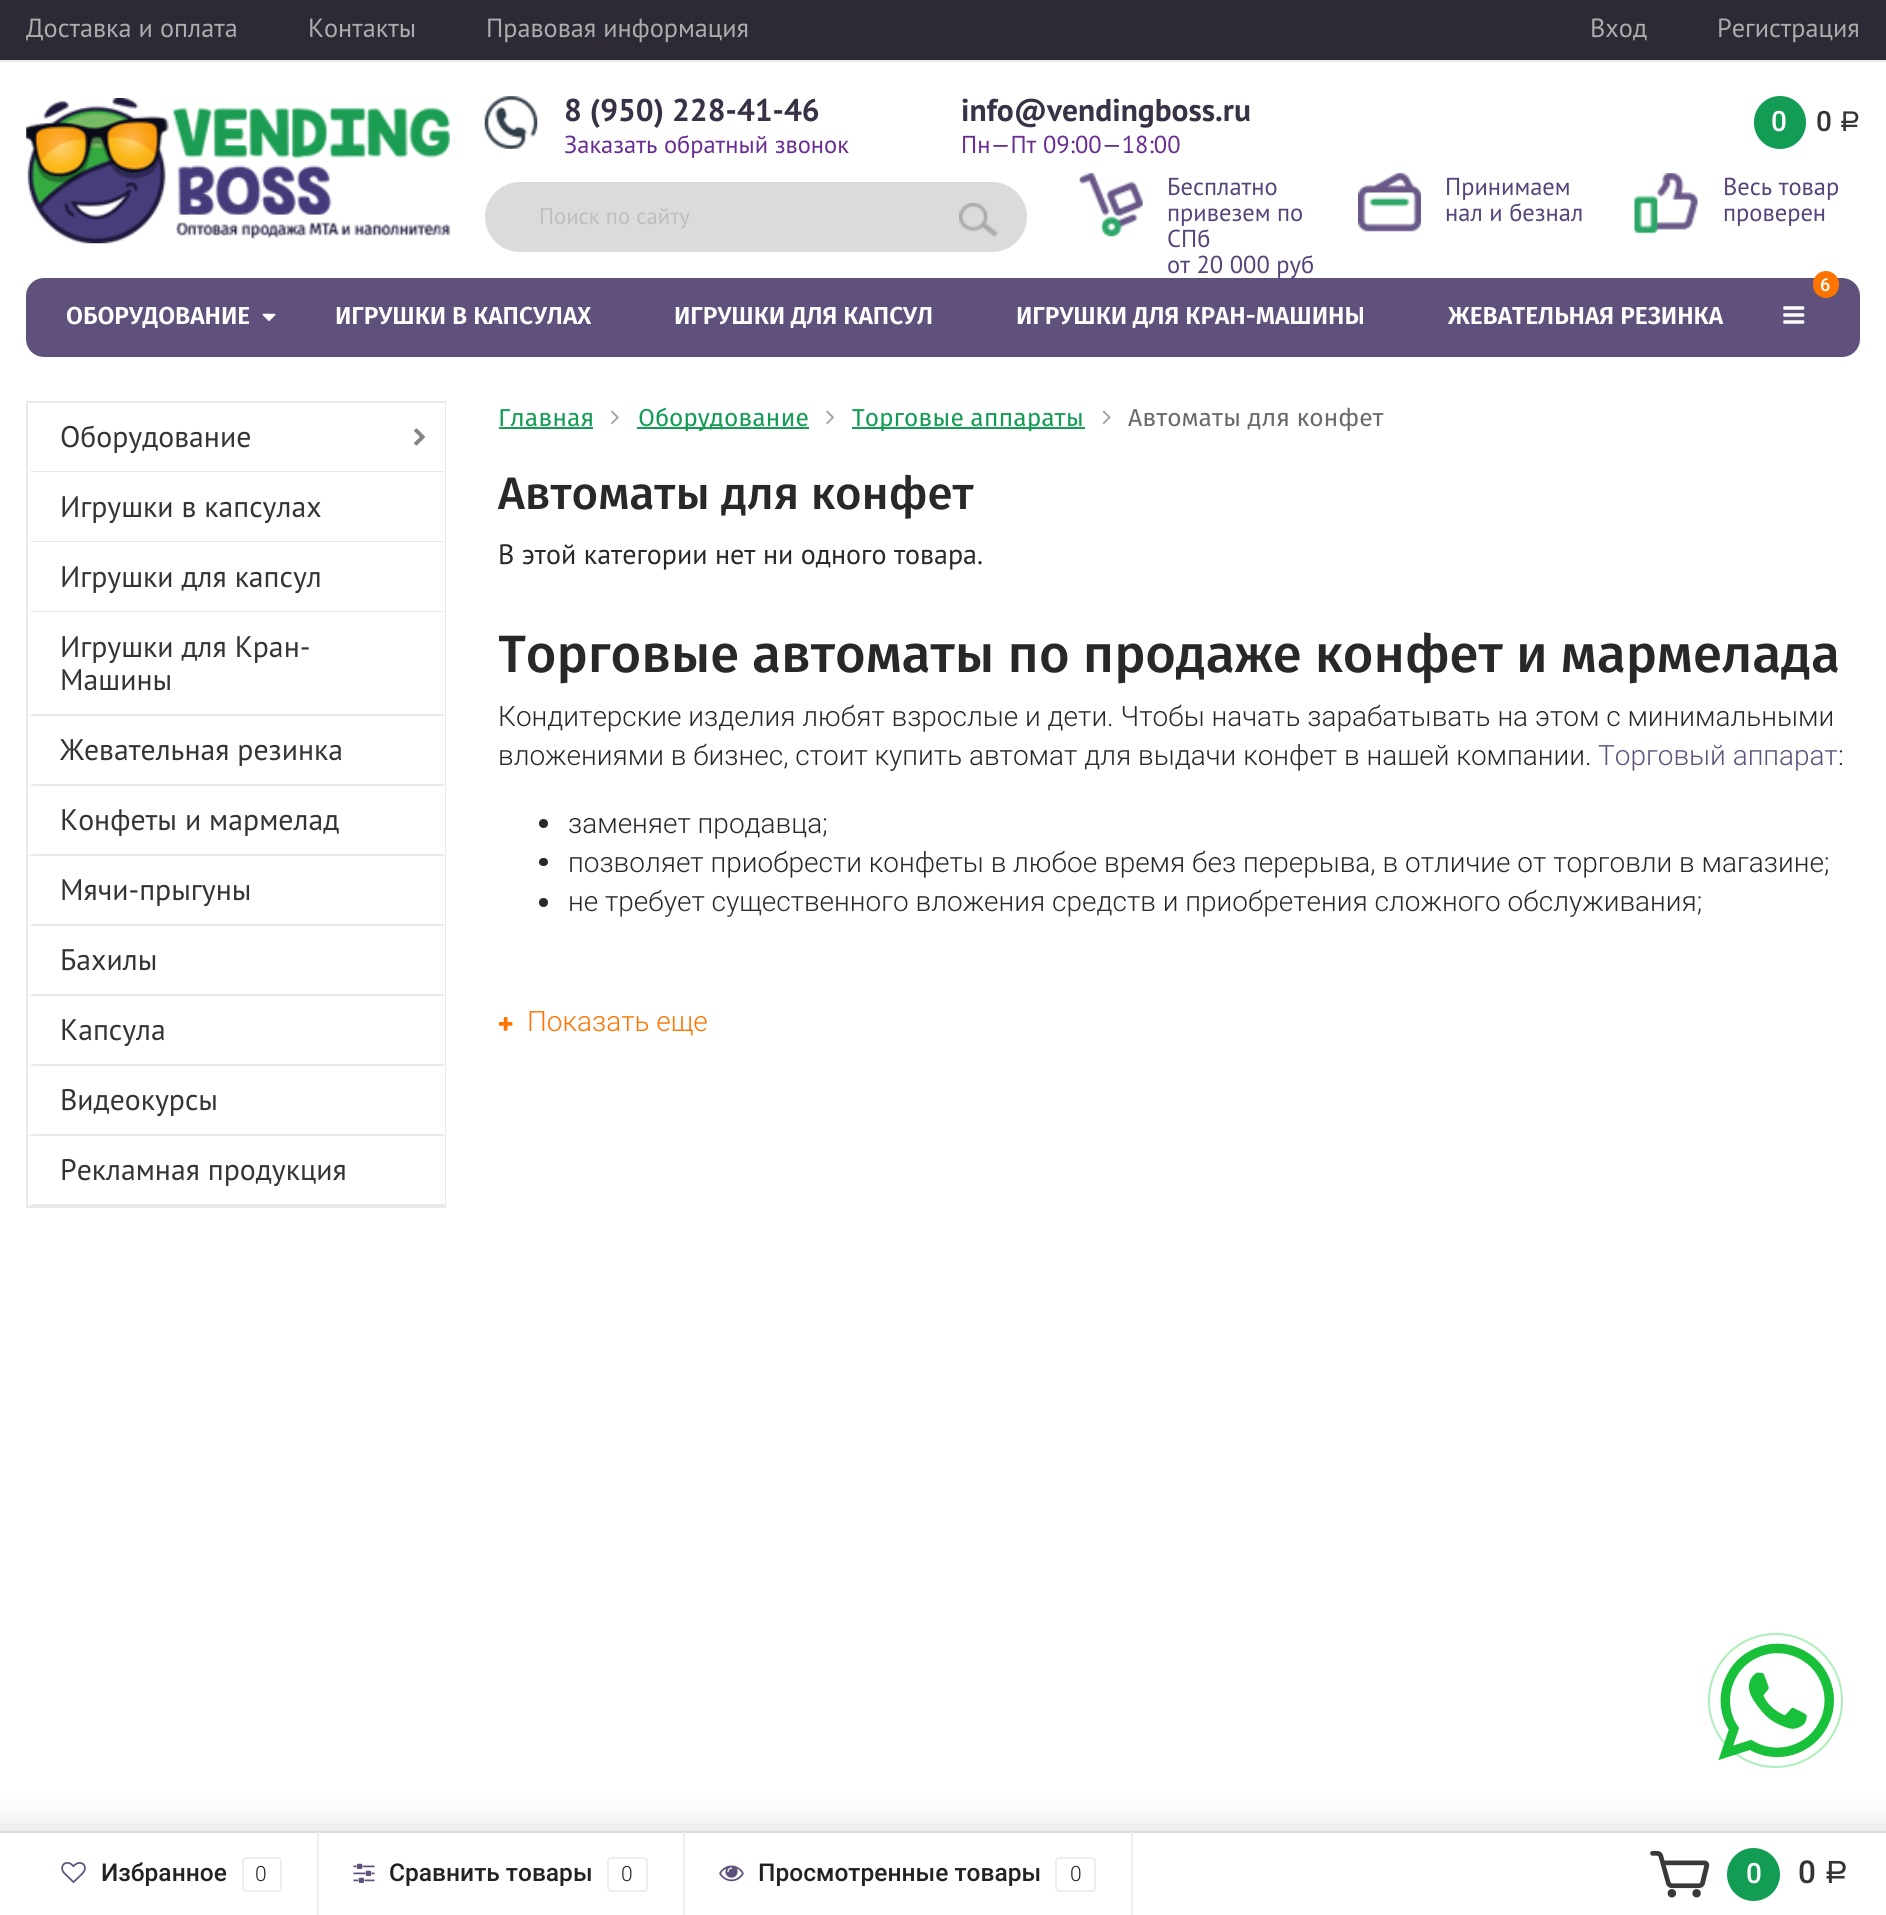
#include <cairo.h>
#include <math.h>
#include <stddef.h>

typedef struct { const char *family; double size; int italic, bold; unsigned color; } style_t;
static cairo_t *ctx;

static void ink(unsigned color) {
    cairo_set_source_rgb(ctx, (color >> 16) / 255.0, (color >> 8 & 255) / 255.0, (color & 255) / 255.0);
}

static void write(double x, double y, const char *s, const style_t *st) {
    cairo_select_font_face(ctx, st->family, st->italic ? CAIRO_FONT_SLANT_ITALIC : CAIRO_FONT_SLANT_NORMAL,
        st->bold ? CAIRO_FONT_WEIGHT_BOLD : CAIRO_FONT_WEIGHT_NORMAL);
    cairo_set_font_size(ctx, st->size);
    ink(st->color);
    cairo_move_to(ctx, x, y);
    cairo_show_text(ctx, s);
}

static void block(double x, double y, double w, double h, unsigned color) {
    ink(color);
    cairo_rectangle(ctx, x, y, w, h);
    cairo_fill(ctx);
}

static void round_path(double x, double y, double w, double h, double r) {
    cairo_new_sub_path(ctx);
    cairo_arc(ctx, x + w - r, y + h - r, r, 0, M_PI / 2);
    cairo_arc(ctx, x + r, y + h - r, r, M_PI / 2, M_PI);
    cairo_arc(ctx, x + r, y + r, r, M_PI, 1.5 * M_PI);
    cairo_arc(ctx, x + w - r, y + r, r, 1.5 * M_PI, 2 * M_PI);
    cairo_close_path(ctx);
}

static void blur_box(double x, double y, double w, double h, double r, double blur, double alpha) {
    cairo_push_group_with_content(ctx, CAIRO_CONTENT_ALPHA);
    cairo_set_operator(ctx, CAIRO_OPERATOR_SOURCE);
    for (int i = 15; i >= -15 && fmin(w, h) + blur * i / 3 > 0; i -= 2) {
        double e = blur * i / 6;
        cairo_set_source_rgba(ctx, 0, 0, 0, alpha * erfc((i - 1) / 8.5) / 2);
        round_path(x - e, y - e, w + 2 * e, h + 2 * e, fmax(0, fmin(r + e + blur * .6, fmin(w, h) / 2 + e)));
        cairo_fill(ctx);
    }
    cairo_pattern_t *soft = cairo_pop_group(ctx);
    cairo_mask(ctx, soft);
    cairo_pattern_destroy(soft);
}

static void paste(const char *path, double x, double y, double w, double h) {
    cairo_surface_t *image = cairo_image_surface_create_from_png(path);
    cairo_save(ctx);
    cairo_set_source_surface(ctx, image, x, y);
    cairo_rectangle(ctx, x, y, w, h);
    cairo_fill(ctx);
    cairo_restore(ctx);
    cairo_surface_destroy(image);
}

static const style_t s1 = {"PT Sans", 26.25, 0, 0, 0xacacac};
static const style_t s2 = {"PT Sans", 31.5, 0, 1, 0x393246};
static const style_t s3 = {"PT Sans", 24.5, 0, 0, 0x692c93};
static const style_t s4 = {"Roboto Medium", 28, 0, 0, 0xffffff};
static const style_t s5 = {"Roboto Medium", 28, 0, 0, 0x343434};
static const style_t s6 = {"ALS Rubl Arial", 28, 0, 0, 0x343434};
static const style_t s7 = {"PT Sans", 22.75, 0, 0, 0xbebebe};
static const style_t s8 = {"PT Sans", 24.5, 0, 0, 0x564379};
static const style_t s9 = {"Roboto Medium", 18, 0, 0, 0xffffff};
static const style_t s10 = {"Fira Sans SemiBold", 24.5, 0, 0, 0xffffff};
static const style_t s11 = {"PT Sans", 29.75, 0, 0, 0x343434};
static const style_t s12 = {"Fira Sans", 24.5, 0, 0, 0x139c54};
static const style_t s13 = {"Fira Sans", 24.5, 0, 0, 0x6a6a6a};
static const style_t s14 = {"Fira Sans Medium", 45.5, 0, 0, 0x282828};
static const style_t s15 = {"PT Sans", 28, 0, 0, 0x282828};
static const style_t s16 = {"Fira Sans Medium", 52.5, 0, 0, 0x282828};
static const style_t s17 = {"Roboto Light", 28, 0, 0, 0x282828};
static const style_t s18 = {"Roboto Light", 28, 0, 0, 0x60517c};
static const style_t s19 = {"Roboto Light", 28, 0, 0, 0xfd7400};
static const style_t s20 = {"Roboto Medium", 24.5, 0, 0, 0x222222};
static const style_t s21 = {"Roboto Light", 21, 0, 0, 0x222222};
static const style_t s22 = {"Roboto Medium", 31.5, 0, 0, 0x343434};
static const style_t s23 = {"ALS Rubl Arial", 31.5, 0, 0, 0x343434};

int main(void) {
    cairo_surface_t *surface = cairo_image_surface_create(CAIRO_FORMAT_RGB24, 1886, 1915);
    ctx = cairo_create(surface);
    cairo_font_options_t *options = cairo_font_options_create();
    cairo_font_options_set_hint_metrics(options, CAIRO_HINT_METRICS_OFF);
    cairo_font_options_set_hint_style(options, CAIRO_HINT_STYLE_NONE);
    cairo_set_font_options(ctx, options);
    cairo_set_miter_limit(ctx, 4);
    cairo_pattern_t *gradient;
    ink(0xffffff);
    cairo_paint(ctx);
    block(0, 0, 1886, 60, 0x2e2a35);
    block(0, 60, 1886, 2, 0xeaeaea);
    write(26, 37, "Доставка и оплата", &s1);
    write(308, 37, "Контакты", &s1);
    write(486, 37, "Правовая информация", &s1);
    write(1590, 37, "Вход", &s1);
    write(1717, 37, "Регистрация", &s1);
    paste("pic1.png", 26, 98, 424, 146);
    paste("pic2.png", 484, 96, 54, 53);
    write(564, 121, "8 (950) 228-41-46", &s2);
    write(564, 153, "Заказать обратный звонок", &s3);
    write(961, 121, "info@vendingboss.ru", &s2);
    write(961, 153, "Пн—Пт 09:00—18:00", &s3);
    ink(0x139c54);
    round_path(1754, 96, 52, 53, 26);
    cairo_fill(ctx);
    write(1771, 131, "0", &s4);
    write(1816, 131, "0", &s5);
    write(1839, 131, "Р", &s6);
    ink(0xdbdbdb);
    round_path(486, 183, 540, 68, 34);
    cairo_fill_preserve(ctx);
    cairo_stroke(ctx);
    write(539, 224, "Поиск по сайту", &s7);
    paste("pic3.png", 959, 203, 39, 34);
    paste("pic4.png", 1079, 173, 64, 64);
    write(1167, 195, "Бесплатно", &s8);
    write(1167, 221, "привезем по", &s8);
    write(1167, 247, "СПб", &s8);
    write(1167, 273, "от 20 000 руб", &s8);
    paste("pic5.png", 1358, 173, 63, 59);
    write(1445, 195, "Принимаем", &s8);
    write(1445, 221, "нал и безнал", &s8);
    paste("pic6.png", 1634, 173, 64, 61);
    write(1723, 195, "Весь товар", &s8);
    write(1723, 221, "проверен", &s8);
    ink(0x60517c);
    round_path(26, 278, 1834, 79, 18);
    cairo_fill(ctx);
    ink(0xfd7400);
    round_path(1813, 271, 26, 27, 13);
    cairo_fill(ctx);
    write(1820, 291, "6", &s9);
    paste("pic7.png", 1783, 306, 22, 18);
    write(66, 324, "ОБОРУДОВАНИЕ", &s10);
    paste("pic8.png", 262, 313, 14, 8);
    write(335, 324, "ИГРУШКИ В КАПСУЛАХ", &s10);
    write(674, 324, "ИГРУШКИ ДЛЯ КАПСУЛ", &s10);
    write(1016, 324, "ИГРУШКИ ДЛЯ КРАН-МАШИНЫ", &s10);
    write(1448, 324, "ЖЕВАТЕЛЬНАЯ РЕЗИНКА", &s10);
    cairo_rectangle(ctx, 27, 402, 418, 805);
    ink(0xe9e9e9);
    cairo_stroke(ctx);
    block(444, 403, 1, 803, 0xffffff);
    ink(0xe9e9e9);
    cairo_new_path(ctx);
    cairo_move_to(ctx, 444, 472);
    cairo_line_to(ctx, 28, 472);
    cairo_line_to(ctx, 33, 471);
    cairo_line_to(ctx, 444, 471);
    cairo_close_path(ctx);
    cairo_fill(ctx);
    write(60, 447, "Оборудование", &s11);
    paste("pic9.png", 414, 428, 11, 18);
    ink(0xe9e9e9);
    cairo_new_path(ctx);
    cairo_move_to(ctx, 444, 542);
    cairo_line_to(ctx, 28, 542);
    cairo_line_to(ctx, 33, 541);
    cairo_line_to(ctx, 444, 541);
    cairo_close_path(ctx);
    cairo_fill(ctx);
    write(60, 517, "Игрушки в капсулах", &s11);
    ink(0xe9e9e9);
    cairo_new_path(ctx);
    cairo_move_to(ctx, 444, 612);
    cairo_line_to(ctx, 28, 612);
    cairo_line_to(ctx, 33, 611);
    cairo_line_to(ctx, 444, 611);
    cairo_close_path(ctx);
    cairo_fill(ctx);
    write(60, 587, "Игрушки для капсул", &s11);
    ink(0xe9e9e9);
    cairo_new_path(ctx);
    cairo_move_to(ctx, 444, 716);
    cairo_line_to(ctx, 28, 716);
    cairo_line_to(ctx, 33, 714);
    cairo_line_to(ctx, 444, 714);
    cairo_close_path(ctx);
    cairo_fill(ctx);
    write(60, 657, "Игрушки для Кран-", &s11);
    write(60, 690, "Машины", &s11);
    ink(0xe9e9e9);
    cairo_new_path(ctx);
    cairo_move_to(ctx, 444, 786);
    cairo_line_to(ctx, 28, 786);
    cairo_line_to(ctx, 33, 784);
    cairo_line_to(ctx, 444, 784);
    cairo_close_path(ctx);
    cairo_fill(ctx);
    write(60, 760, "Жевательная резинка", &s11);
    ink(0xe9e9e9);
    cairo_new_path(ctx);
    cairo_move_to(ctx, 444, 856);
    cairo_line_to(ctx, 28, 856);
    cairo_line_to(ctx, 33, 854);
    cairo_line_to(ctx, 444, 854);
    cairo_close_path(ctx);
    cairo_fill(ctx);
    write(60, 830, "Конфеты и мармелад", &s11);
    ink(0xe9e9e9);
    cairo_new_path(ctx);
    cairo_move_to(ctx, 444, 926);
    cairo_line_to(ctx, 28, 926);
    cairo_line_to(ctx, 33, 924);
    cairo_line_to(ctx, 444, 924);
    cairo_close_path(ctx);
    cairo_fill(ctx);
    write(60, 900, "Мячи-прыгуны", &s11);
    ink(0xe9e9e9);
    cairo_new_path(ctx);
    cairo_move_to(ctx, 444, 996);
    cairo_line_to(ctx, 28, 996);
    cairo_line_to(ctx, 33, 994);
    cairo_line_to(ctx, 444, 994);
    cairo_close_path(ctx);
    cairo_fill(ctx);
    write(60, 970, "Бахилы", &s11);
    ink(0xe9e9e9);
    cairo_new_path(ctx);
    cairo_move_to(ctx, 444, 1066);
    cairo_line_to(ctx, 28, 1066);
    cairo_line_to(ctx, 33, 1064);
    cairo_line_to(ctx, 444, 1064);
    cairo_close_path(ctx);
    cairo_fill(ctx);
    write(60, 1040, "Капсула", &s11);
    ink(0xe9e9e9);
    cairo_new_path(ctx);
    cairo_move_to(ctx, 444, 1136);
    cairo_line_to(ctx, 28, 1136);
    cairo_line_to(ctx, 33, 1134);
    cairo_line_to(ctx, 444, 1134);
    cairo_close_path(ctx);
    cairo_fill(ctx);
    write(60, 1110, "Видеокурсы", &s11);
    ink(0xe9e9e9);
    cairo_new_path(ctx);
    cairo_move_to(ctx, 444, 1206);
    cairo_line_to(ctx, 28, 1206);
    cairo_line_to(ctx, 33, 1204);
    cairo_line_to(ctx, 444, 1204);
    cairo_close_path(ctx);
    cairo_fill(ctx);
    write(60, 1180, "Рекламная продукция", &s11);
    write(498, 426, "Главная", &s12);
    block(499, 427, 94, 2, 0x139c54);
    paste("pic10.png", 611, 410, 8, 15);
    block(637, 427, 172, 2, 0x139c54);
    write(638, 426, "Оборудование", &s12);
    paste("pic11.png", 826, 410, 8, 15);
    block(852, 427, 233, 2, 0x139c54);
    write(852, 426, "Торговые аппараты", &s12);
    paste("pic12.png", 1102, 410, 9, 15);
    write(1128, 426, "Автоматы для конфет", &s13);
    write(498, 509, "Автоматы для конфет", &s14);
    write(498, 564, "В этой категории нет ни одного товара.", &s15);
    cairo_save(ctx);
    cairo_rectangle(ctx, 499, 627, 1361, 437);
    cairo_clip(ctx);
    write(498, 672, "Торговые автоматы по продаже конфет и мармелада", &s16);
    cairo_restore(ctx);
    write(498, 726, "Кондитерские изделия любят взрослые и дети. Чтобы начать зарабатывать на этом с минимальными", &s17);
    write(498, 765, "вложениями в бизнес, стоит купить автомат для выдачи конфет в нашей компании.", &s17);
    write(1598, 765, "Торговый аппарат", &s18);
    write(1838, 765, ":", &s17);
    cairo_new_path(ctx);
    cairo_arc(ctx, 543.5, 823.5, 4.5, 0, 2 * M_PI);
    cairo_fill(ctx);
    write(568, 833, "заменяет продавца;", &s17);
    round_path(539, 858, 9, 8, 4);
    cairo_fill(ctx);
    write(568, 872, "позволяет приобрести конфеты в любое время без перерыва, в отличие от торговли в магазине;", &s17);
    cairo_new_path(ctx);
    cairo_arc(ctx, 543.5, 902.5, 4.5, 0, 2 * M_PI);
    cairo_fill(ctx);
    write(568, 911, "не требует существенного вложения средств и приобретения сложного обслуживания;", &s17);
    gradient = cairo_pattern_create_linear(1180, 907, 1180, 1064);
    cairo_pattern_add_color_stop_rgba(gradient, 0, 1, 1, 1, 0);
    cairo_pattern_add_color_stop_rgba(gradient, 0.51, 1, 1, 1, 1);
    cairo_pattern_add_color_stop_rgba(gradient, 0.54, 1, 1, 1, 1);
    cairo_set_source(ctx, gradient);
    cairo_pattern_destroy(gradient);
    cairo_rectangle(ctx, 570, 909, 1131, 8);
    cairo_fill(ctx);
    paste("pic13.png", 499, 1017, 14, 14);
    write(527, 1031, "Показать еще", &s19);
    cairo_new_path(ctx);
    cairo_arc(ctx, 1775.5, 1700.5, 66.5, 0, 2 * M_PI);
    ink(0xadeeb9);
    cairo_stroke(ctx);
    paste("pic14.png", 1718, 1643, 116, 117);
    ink(0x323232);
    blur_box(-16, 1827, 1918, 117, 0, 17.5, 0.15);
    block(0, 1833, 1886, 82, 0xffffff);
    block(0, 1831, 1886, 2, 0xdbdbdb);
    block(317, 1832, 2, 83, 0xededed);
    paste("pic15.png", 61, 1862, 25, 21);
    write(101, 1881, "Избранное", &s20);
    round_path(243, 1858, 38, 33, 3);
    ink(0xeeeeee);
    cairo_stroke(ctx);
    write(255, 1881, "0", &s21);
    block(683, 1832, 2, 83, 0xededed);
    paste("pic16.png", 353, 1863, 22, 20);
    write(389, 1881, "Сравнить товары", &s20);
    round_path(608, 1858, 39, 33, 3);
    ink(0xeeeeee);
    cairo_stroke(ctx);
    write(621, 1881, "0", &s21);
    block(1131, 1832, 2, 83, 0xededed);
    paste("pic17.png", 719, 1865, 25, 17);
    write(758, 1881, "Просмотренные товары", &s20);
    round_path(1056, 1858, 39, 33, 3);
    ink(0xeeeeee);
    cairo_stroke(ctx);
    write(1070, 1881, "0", &s21);
    paste("pic18.png", 1650, 1851, 60, 47);
    ink(0x139c54);
    cairo_arc(ctx, 1753.5, 1874.5, 26.5, 0, 2 * M_PI);
    cairo_fill(ctx);
    write(1746, 1883, "0", &s4);
    write(1798, 1883, "0", &s22);
    write(1824, 1883, "Р", &s23);
    cairo_surface_write_to_png(surface, "screenshot.png");
    cairo_font_options_destroy(options);
    cairo_destroy(ctx);
    cairo_surface_destroy(surface);
    return 0;
}
